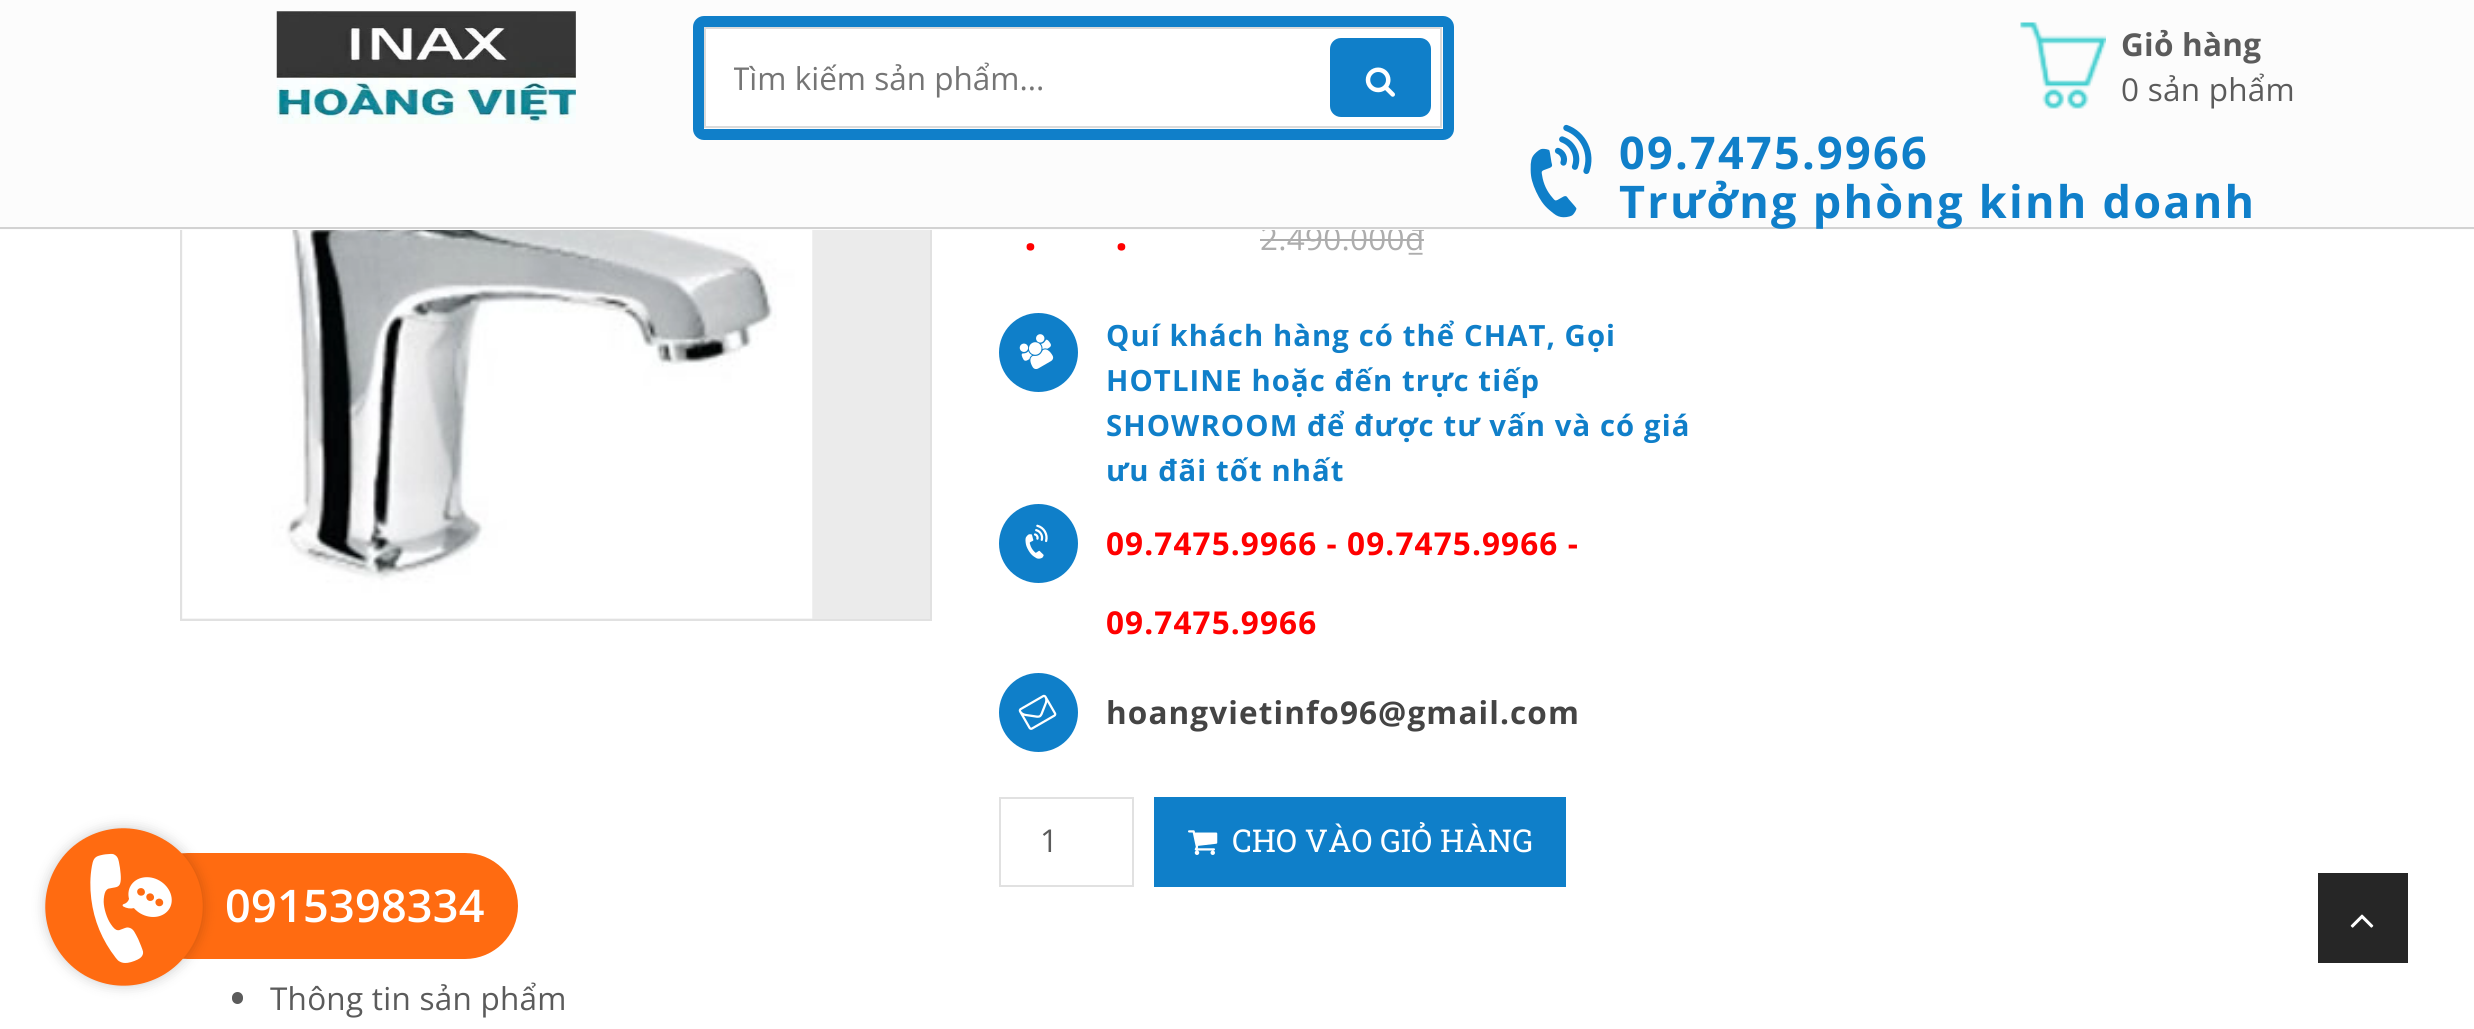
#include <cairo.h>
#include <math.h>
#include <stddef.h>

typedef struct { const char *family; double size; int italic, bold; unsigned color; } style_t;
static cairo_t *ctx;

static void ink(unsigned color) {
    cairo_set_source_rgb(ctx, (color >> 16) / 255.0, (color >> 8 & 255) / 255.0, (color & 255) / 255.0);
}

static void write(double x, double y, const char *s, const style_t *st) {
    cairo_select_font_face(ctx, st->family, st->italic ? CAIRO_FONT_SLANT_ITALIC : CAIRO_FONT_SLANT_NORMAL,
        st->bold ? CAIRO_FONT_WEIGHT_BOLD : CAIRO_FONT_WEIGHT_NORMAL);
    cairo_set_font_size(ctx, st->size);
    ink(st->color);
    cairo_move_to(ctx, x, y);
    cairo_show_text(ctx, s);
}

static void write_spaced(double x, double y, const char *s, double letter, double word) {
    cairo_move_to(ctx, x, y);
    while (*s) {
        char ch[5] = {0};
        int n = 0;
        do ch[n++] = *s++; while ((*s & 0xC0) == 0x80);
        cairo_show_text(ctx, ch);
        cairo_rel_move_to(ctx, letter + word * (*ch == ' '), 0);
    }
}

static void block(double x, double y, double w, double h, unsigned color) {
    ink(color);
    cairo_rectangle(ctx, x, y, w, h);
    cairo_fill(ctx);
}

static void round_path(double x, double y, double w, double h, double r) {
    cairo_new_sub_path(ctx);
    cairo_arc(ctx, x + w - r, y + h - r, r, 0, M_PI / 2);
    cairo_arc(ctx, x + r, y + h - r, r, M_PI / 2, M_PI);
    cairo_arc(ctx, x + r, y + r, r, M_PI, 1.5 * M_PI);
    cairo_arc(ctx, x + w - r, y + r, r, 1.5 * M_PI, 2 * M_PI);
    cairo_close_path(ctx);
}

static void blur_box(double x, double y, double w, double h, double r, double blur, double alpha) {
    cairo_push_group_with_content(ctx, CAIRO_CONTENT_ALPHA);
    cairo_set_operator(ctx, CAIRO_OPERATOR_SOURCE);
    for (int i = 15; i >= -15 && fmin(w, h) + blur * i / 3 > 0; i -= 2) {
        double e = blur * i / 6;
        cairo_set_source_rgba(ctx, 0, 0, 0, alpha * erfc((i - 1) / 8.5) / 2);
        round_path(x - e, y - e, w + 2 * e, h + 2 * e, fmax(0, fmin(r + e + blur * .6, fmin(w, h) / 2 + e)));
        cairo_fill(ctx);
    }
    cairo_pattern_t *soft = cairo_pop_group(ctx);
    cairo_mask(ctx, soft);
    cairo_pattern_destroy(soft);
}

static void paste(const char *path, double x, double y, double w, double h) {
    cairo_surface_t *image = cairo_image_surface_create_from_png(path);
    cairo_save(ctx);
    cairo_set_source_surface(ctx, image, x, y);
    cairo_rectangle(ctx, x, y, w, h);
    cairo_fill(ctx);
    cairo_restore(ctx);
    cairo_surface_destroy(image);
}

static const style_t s1 = {"Open Sans", 31.5, 0, 0, 0x757575};
static const style_t s2 = {"Open Sans", 31.5, 0, 0, 0x5b5b5b};
static const style_t s3 = {"Roboto Slab", 31.5, 0, 0, 0xffffff};

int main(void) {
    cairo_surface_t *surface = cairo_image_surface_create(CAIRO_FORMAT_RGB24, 2474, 1029);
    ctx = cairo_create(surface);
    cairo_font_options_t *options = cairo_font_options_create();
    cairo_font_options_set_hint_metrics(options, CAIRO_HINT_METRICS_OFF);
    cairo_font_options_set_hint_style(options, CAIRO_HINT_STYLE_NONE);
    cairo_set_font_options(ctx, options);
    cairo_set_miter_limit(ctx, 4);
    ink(0xffffff);
    cairo_paint(ctx);
    block(182, 230, 748, 389, 0xebebeb);
    cairo_rectangle(ctx, 181, -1, 750, 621);
    ink(0xe1e1e1);
    cairo_stroke(ctx);
    cairo_select_font_face(ctx, "Open Sans", CAIRO_FONT_SLANT_NORMAL, CAIRO_FONT_WEIGHT_NORMAL);
    cairo_set_font_size(ctx, 31.5);
    ink(0xadadad);
    write_spaced(1260, 250, "2.490.000₫", 0.25, 0);
    block(0, 0, 2474, 230, 0xfcfcfc);
    block(0, 227, 2474, 2, 0xd2d2d2);
    paste("pic1.png", 276, 11, 300, 113);
    round_path(698.5, 21.5, 750, 113, 5.5);
    ink(0x107fc9);
    cairo_set_line_width(ctx, 11);
    cairo_stroke(ctx);
    ink(0xffffff);
    cairo_rectangle(ctx, 705, 28, 736, 99);
    cairo_fill_preserve(ctx);
    ink(0xdbdbdb);
    cairo_set_line_width(ctx, 2);
    cairo_stroke(ctx);
    cairo_save(ctx);
    cairo_rectangle(ctx, 734, 56, 594, 43);
    cairo_clip(ctx);
    write(732, 90, "Tìm kiếm sản phẩm...", &s1);
    cairo_restore(ctx);
    ink(0x107fc9);
    round_path(1330, 38, 101, 79, 11);
    cairo_fill(ctx);
    paste("pic2.png", 1365, 67, 30, 30);
    paste("pic3.png", 2020, 22, 86, 87);
    cairo_select_font_face(ctx, "Open Sans", CAIRO_FONT_SLANT_NORMAL, CAIRO_FONT_WEIGHT_BOLD);
    ink(0x5b5b5b);
    write_spaced(2121, 56, "Giỏ hàng", 0.25, 0);
    cairo_select_font_face(ctx, "Open Sans", CAIRO_FONT_SLANT_NORMAL, CAIRO_FONT_WEIGHT_NORMAL);
    write_spaced(2121, 101, "0 sản phẩm", 0.25, 0);
    paste("pic4.png", 1530, 124, 62, 94);
    cairo_select_font_face(ctx, "Open Sans", CAIRO_FONT_SLANT_NORMAL, CAIRO_FONT_WEIGHT_BOLD);
    cairo_set_font_size(ctx, 45);
    ink(0x107fc9);
    write_spaced(1619, 169, "09.7475.9966", 2.25, 0);
    write_spaced(1619, 218, "Trưởng phòng kinh doanh", 2.25, 0);
    paste("pic5.png", 182, 230, 631, 389);
    ink(0xff0000);
    write_spaced(1024, 250, ".", 0.25, 0);
    write_spaced(1115, 250, ".", 0.25, 0);
    block(1260, 239, 164, 2, 0xadadad);
    ink(0x0f7fc9);
    cairo_new_path(ctx);
    cairo_arc(ctx, 1038.5, 352.5, 39.5, 0, 2 * M_PI);
    cairo_fill(ctx);
    paste("pic6.png", 1019, 334, 35, 35);
    cairo_set_font_size(ctx, 29.25);
    ink(0x107fc9);
    write_spaced(1106, 346, "Quí khách hàng có thể CHAT, Gọi", 1.1, 0);
    write_spaced(1106, 391, "HOTLINE hoặc đến trực tiếp", 1.1, 0);
    write_spaced(1106, 436, "SHOWROOM để được tư vấn và có giá", 1.1, 0);
    write_spaced(1106, 481, "ưu đãi tốt nhất", 1.1, 0);
    ink(0x0f7fc9);
    cairo_new_path(ctx);
    cairo_arc(ctx, 1038.5, 543.5, 39.5, 0, 2 * M_PI);
    cairo_fill(ctx);
    paste("pic7.png", 1025, 524, 23, 35);
    cairo_set_font_size(ctx, 31.5);
    ink(0xff0000);
    write_spaced(1106, 555, "09.7475.9966 - 09.7475.9966 -", 1.1, 0);
    write_spaced(1106, 634, "09.7475.9966", 1.1, 0);
    ink(0x0f7fc9);
    cairo_new_path(ctx);
    cairo_arc(ctx, 1038.5, 712.5, 39.5, 0, 2 * M_PI);
    cairo_fill(ctx);
    paste("pic8.png", 1018, 694, 39, 36);
    ink(0x444444);
    write_spaced(1106, 724, "hoangvietinfo96@gmail.com", 1.1, 0);
    cairo_rectangle(ctx, 1000, 798, 133, 88);
    ink(0xe1e1e1);
    cairo_stroke(ctx);
    write(1040, 852, "1", &s2);
    block(1154, 797, 412, 90, 0x0f7fc9);
    paste("pic9.png", 1188, 830, 30, 25);
    write(1232, 852, "CHO VÀO GIỎ HÀNG", &s3);
    ink(0x5b5b5b);
    round_path(232, 992, 11, 12, 5.5);
    cairo_fill(ctx);
    cairo_select_font_face(ctx, "Open Sans", CAIRO_FONT_SLANT_NORMAL, CAIRO_FONT_WEIGHT_NORMAL);
    write_spaced(270, 1010, "Thông tin sản phẩm", 0.25, 0);
    block(2318, 873, 90, 90, 0x262626);
    paste("pic10.png", 2350, 914, 24, 14);
    ink(0xff6b11);
    round_path(135, 853, 383, 106, 53);
    cairo_fill(ctx);
    ink(0x000000);
    blur_box(45, 828, 158, 158, 79, 6.5, 0.2);
    ink(0xff6b11);
    cairo_new_path(ctx);
    cairo_move_to(ctx, 163, 839);
    cairo_curve_to(ctx, 201, 860, 214, 908, 192, 946);
    cairo_curve_to(ctx, 170, 984, 122, 997, 84, 975);
    cairo_curve_to(ctx, 47, 953, 34, 905, 56, 867);
    cairo_curve_to(ctx, 77, 830, 125, 817, 163, 839);
    cairo_close_path(ctx);
    cairo_fill(ctx);
    paste("pic11.png", 90, 853, 82, 110);
    cairo_select_font_face(ctx, "Open Sans SemiBold", CAIRO_FONT_SLANT_NORMAL, CAIRO_FONT_WEIGHT_NORMAL);
    cairo_set_font_size(ctx, 45);
    ink(0xffffff);
    write_spaced(225, 922, "0915398334", 0.25, 0);
    cairo_surface_write_to_png(surface, "screenshot.png");
    cairo_font_options_destroy(options);
    cairo_destroy(ctx);
    cairo_surface_destroy(surface);
    return 0;
}
